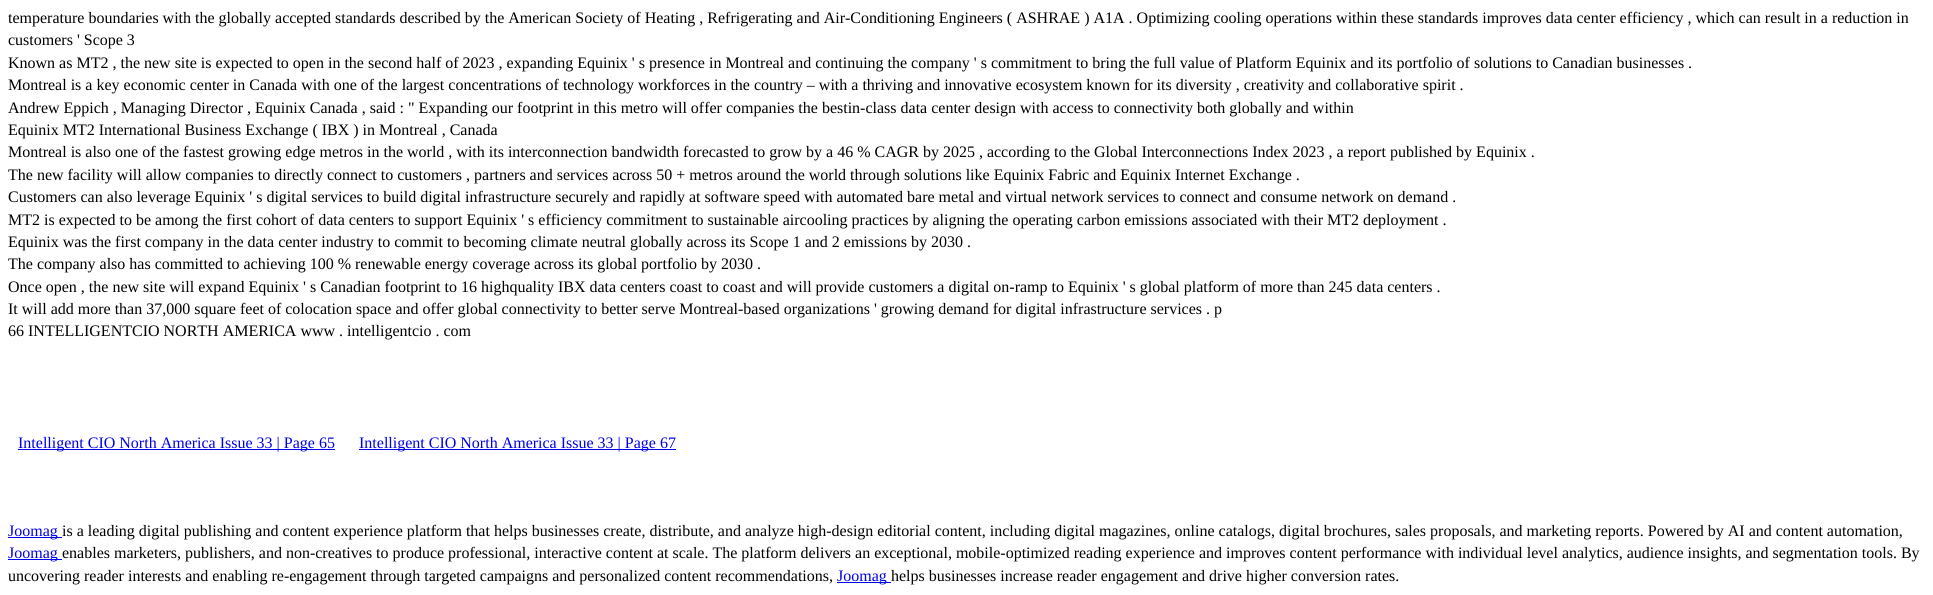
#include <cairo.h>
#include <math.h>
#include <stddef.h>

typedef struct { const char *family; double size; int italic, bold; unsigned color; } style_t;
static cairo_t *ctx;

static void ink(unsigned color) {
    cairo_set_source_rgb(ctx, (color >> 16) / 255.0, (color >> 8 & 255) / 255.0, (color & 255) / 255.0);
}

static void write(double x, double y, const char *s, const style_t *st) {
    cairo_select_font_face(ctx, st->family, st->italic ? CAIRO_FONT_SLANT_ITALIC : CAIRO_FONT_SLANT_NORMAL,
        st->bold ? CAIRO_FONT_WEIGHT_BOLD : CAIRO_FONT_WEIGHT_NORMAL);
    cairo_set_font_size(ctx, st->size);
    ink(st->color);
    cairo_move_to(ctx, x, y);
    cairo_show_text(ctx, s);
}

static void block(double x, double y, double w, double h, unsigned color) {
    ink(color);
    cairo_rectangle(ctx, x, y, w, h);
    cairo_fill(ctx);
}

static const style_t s1 = {"Liberation Serif", 16, 0, 0, 0x000000};
static const style_t s2 = {"Liberation Serif", 16, 0, 0, 0x0000ee};

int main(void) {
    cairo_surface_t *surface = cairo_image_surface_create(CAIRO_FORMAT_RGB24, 1933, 595);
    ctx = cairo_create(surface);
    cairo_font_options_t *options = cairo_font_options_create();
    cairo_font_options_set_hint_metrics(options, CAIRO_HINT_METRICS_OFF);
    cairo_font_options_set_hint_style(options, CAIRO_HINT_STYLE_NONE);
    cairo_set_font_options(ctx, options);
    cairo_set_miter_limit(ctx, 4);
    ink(0xffffff);
    cairo_paint(ctx);
    write(8, 23, "temperature boundaries with the globally accepted standards described by the American Society of Heating , Refrigerating and Air-Conditioning Engineers ( ASHRAE ) A1A . Optimizing cooling operations within these standards improves data center efficiency , which can result in a reduction in", &s1);
    write(8, 45, "customers ' Scope 3", &s1);
    write(8, 68, "Known as MT2 , the new site is expected to open in the second half of 2023 , expanding Equinix ' s presence in Montreal and continuing the company ' s commitment to bring the full value of Platform Equinix and its portfolio of solutions to Canadian businesses .", &s1);
    write(8, 90, "Montreal is a key economic center in Canada with one of the largest concentrations of technology workforces in the country – with a thriving and innovative ecosystem known for its diversity , creativity and collaborative spirit .", &s1);
    write(8, 113, "Andrew Eppich , Managing Director , Equinix Canada , said : \" Expanding our footprint in this metro will offer companies the bestin-class data center design with access to connectivity both globally and within", &s1);
    write(8, 135, "Equinix MT2 International Business Exchange ( IBX ) in Montreal , Canada", &s1);
    write(8, 157, "Montreal is also one of the fastest growing edge metros in the world , with its interconnection bandwidth forecasted to grow by a 46 % CAGR by 2025 , according to the Global Interconnections Index 2023 , a report published by Equinix .", &s1);
    write(8, 180, "The new facility will allow companies to directly connect to customers , partners and services across 50 + metros around the world through solutions like Equinix Fabric and Equinix Internet Exchange .", &s1);
    write(8, 202, "Customers can also leverage Equinix ' s digital services to build digital infrastructure securely and rapidly at software speed with automated bare metal and virtual network services to connect and consume network on demand .", &s1);
    write(8, 225, "MT2 is expected to be among the first cohort of data centers to support Equinix ' s efficiency commitment to sustainable aircooling practices by aligning the operating carbon emissions associated with their MT2 deployment .", &s1);
    write(8, 247, "Equinix was the first company in the data center industry to commit to becoming climate neutral globally across its Scope 1 and 2 emissions by 2030 .", &s1);
    write(8, 269, "The company also has committed to achieving 100 % renewable energy coverage across its global portfolio by 2030 .", &s1);
    write(8, 292, "Once open , the new site will expand Equinix ' s Canadian footprint to 16 highquality IBX data centers coast to coast and will provide customers a digital on-ramp to Equinix ' s global platform of more than 245 data centers .", &s1);
    write(8, 314, "It will add more than 37,000 square feet of colocation space and offer global connectivity to better serve Montreal-based organizations ' growing demand for digital infrastructure services . p", &s1);
    write(8, 336, "66 INTELLIGENTCIO NORTH AMERICA www . intelligentcio . com", &s1);
    block(18, 449, 317, 1, 0x0000ee);
    write(18, 448, "Intelligent CIO North America Issue 33 | Page 65", &s2);
    block(359, 449, 317, 1, 0x0000ee);
    write(359, 448, "Intelligent CIO North America Issue 33 | Page 67", &s2);
    block(8, 537, 54, 1, 0x0000ee);
    write(8, 536, "Joomag", &s2);
    write(62, 536, "is a leading digital publishing and content experience platform that helps businesses create, distribute, and analyze high-design editorial content, including digital magazines, online catalogs, digital brochures, sales proposals, and marketing reports. Powered by AI and content automation,", &s1);
    block(8, 559, 54, 1, 0x0000ee);
    write(8, 558, "Joomag", &s2);
    write(62, 558, "enables marketers, publishers, and non-creatives to produce professional, interactive content at scale. The platform delivers an exceptional, mobile-optimized reading experience and improves content performance with individual level analytics, audience insights, and segmentation tools. By", &s1);
    write(8, 581, "uncovering reader interests and enabling re-engagement through targeted campaigns and personalized content recommendations,", &s1);
    block(837, 582, 54, 1, 0x0000ee);
    write(837, 581, "Joomag", &s2);
    write(891, 581, "helps businesses increase reader engagement and drive higher conversion rates.", &s1);
    cairo_surface_write_to_png(surface, "screenshot.png");
    cairo_font_options_destroy(options);
    cairo_destroy(ctx);
    cairo_surface_destroy(surface);
    return 0;
}
